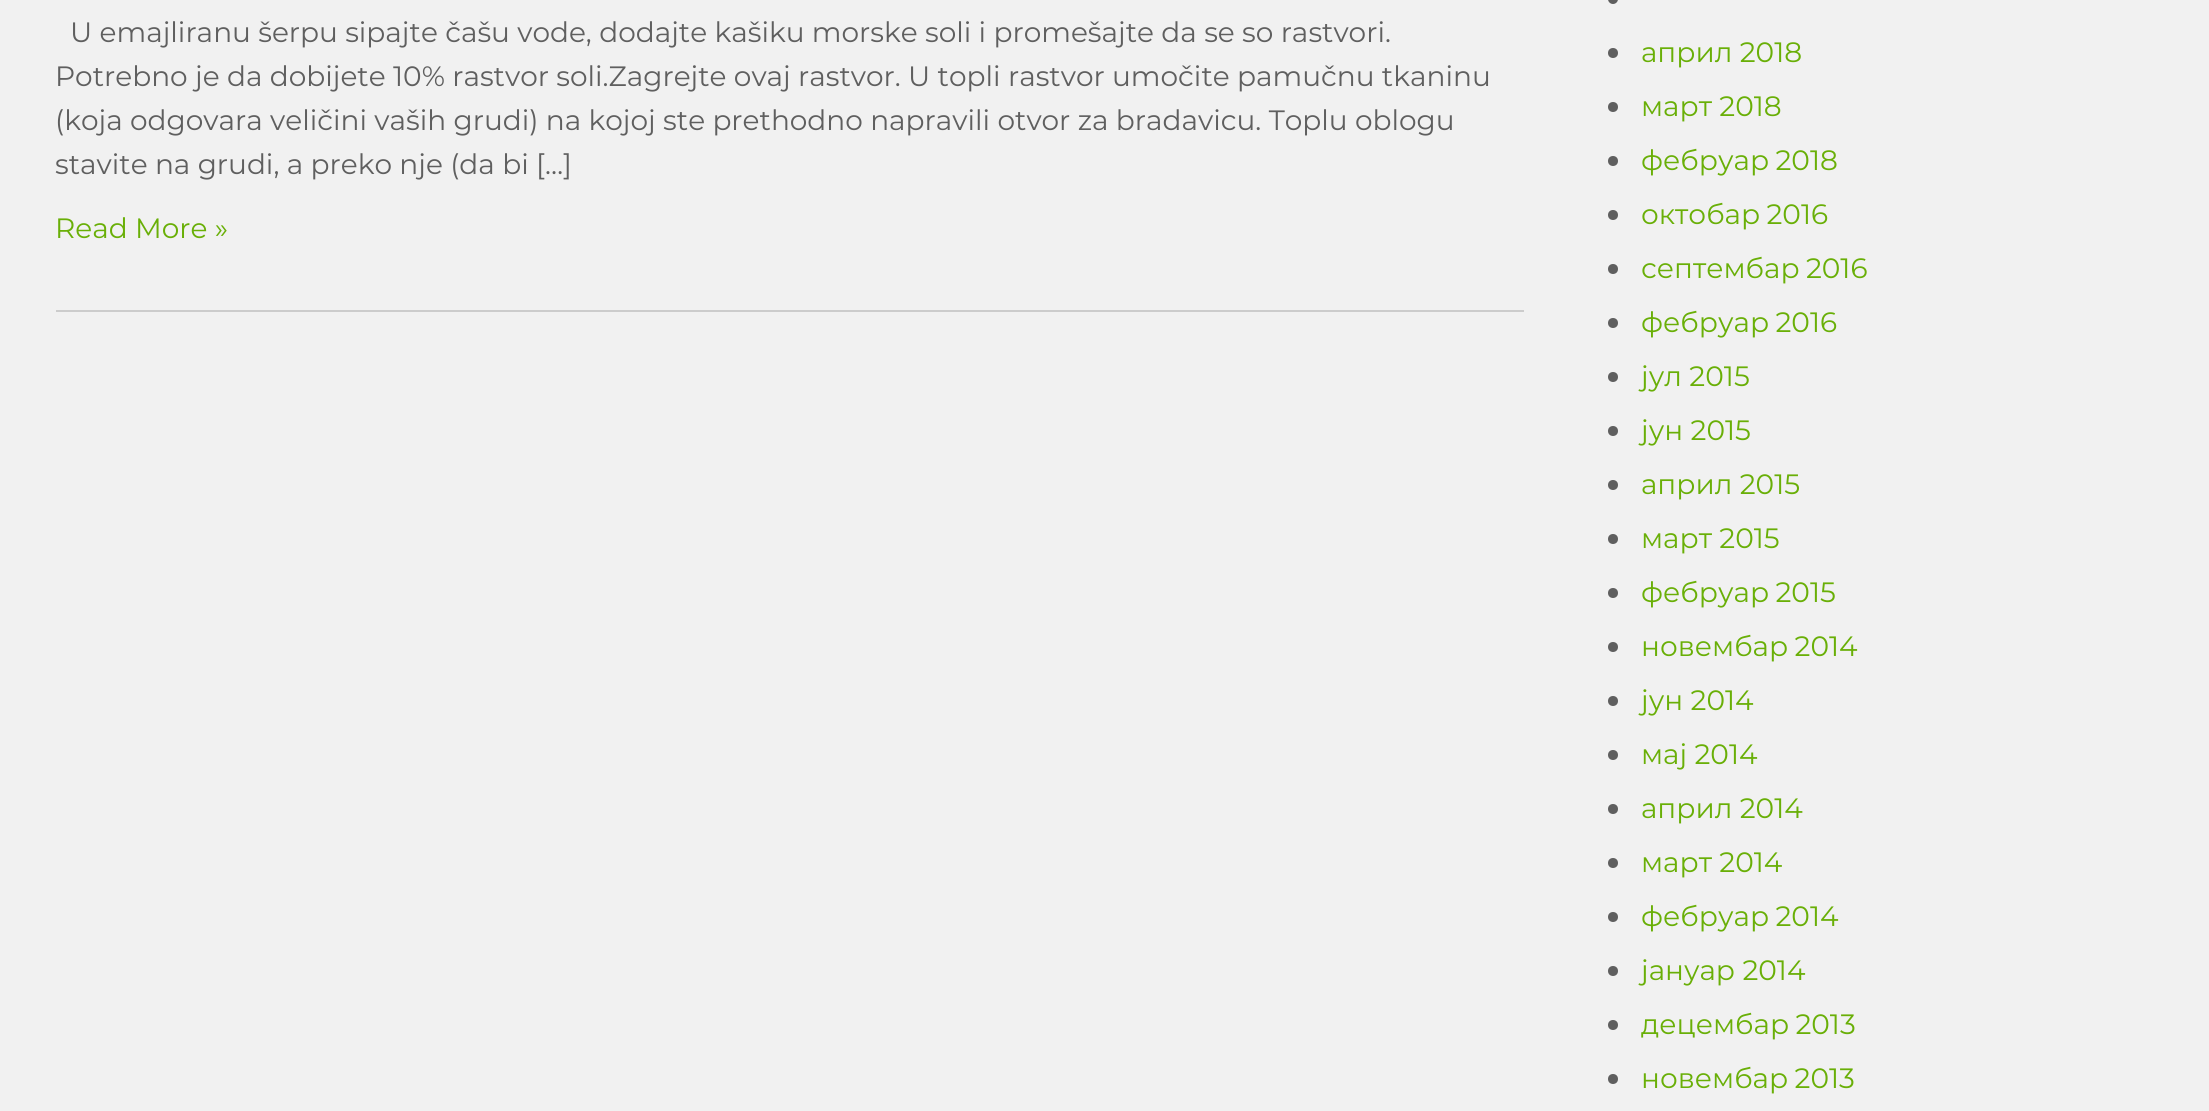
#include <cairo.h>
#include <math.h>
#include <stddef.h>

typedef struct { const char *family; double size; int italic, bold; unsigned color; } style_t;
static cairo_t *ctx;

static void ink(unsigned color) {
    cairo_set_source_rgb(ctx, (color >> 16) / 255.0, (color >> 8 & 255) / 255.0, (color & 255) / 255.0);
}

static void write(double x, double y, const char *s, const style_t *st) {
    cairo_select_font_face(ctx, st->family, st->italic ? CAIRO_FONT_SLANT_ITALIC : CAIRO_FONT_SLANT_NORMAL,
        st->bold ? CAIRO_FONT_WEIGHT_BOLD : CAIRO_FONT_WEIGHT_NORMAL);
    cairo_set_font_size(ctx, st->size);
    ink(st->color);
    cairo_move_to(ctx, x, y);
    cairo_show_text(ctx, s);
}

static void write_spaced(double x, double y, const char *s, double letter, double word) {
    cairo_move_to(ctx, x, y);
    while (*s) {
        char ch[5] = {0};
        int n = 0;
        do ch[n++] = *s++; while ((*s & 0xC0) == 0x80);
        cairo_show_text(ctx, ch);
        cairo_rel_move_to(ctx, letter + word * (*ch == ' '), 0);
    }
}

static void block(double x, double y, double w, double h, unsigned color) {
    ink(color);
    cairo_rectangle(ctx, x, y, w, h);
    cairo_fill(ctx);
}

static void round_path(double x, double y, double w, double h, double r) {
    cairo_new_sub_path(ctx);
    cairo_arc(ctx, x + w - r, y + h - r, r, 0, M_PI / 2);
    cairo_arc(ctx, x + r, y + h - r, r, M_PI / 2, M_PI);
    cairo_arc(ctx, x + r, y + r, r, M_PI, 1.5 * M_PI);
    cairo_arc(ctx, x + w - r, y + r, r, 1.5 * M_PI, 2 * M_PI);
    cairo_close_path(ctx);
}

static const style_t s1 = {"Montserrat", 28, 0, 0, 0x5f5f5f};
static const style_t s2 = {"Montserrat", 28, 0, 0, 0x69af07};

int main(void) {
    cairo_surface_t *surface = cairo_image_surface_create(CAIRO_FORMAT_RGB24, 2209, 1111);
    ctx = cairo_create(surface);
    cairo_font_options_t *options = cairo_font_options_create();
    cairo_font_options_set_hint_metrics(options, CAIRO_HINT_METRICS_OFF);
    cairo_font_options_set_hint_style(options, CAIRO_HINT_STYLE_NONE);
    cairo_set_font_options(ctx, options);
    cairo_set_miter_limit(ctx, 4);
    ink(0xf1f1f1);
    cairo_paint(ctx);
    block(56, 310, 1468, 2, 0xcccccc);
    write(70, 42, "U emajliranu šerpu sipajte čašu vode, dodajte kašiku morske soli i promešajte da se so rastvori.", &s1);
    write(55, 86, "Potrebno je da dobijete 10% rastvor soli.Zagrejte ovaj rastvor. U topli rastvor umočite pamučnu tkaninu", &s1);
    write(55, 130, "(koja odgovara veličini vaših grudi) na kojoj ste prethodno napravili otvor za bradavicu. Toplu oblogu", &s1);
    write(55, 174, "stavite na grudi, a preko nje (da bi […]", &s1);
    write(55, 238, "Read More »", &s2);
    ink(0x5f5f5f);
    round_path(1608, -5, 10, 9, 5);
    cairo_fill(ctx);
    cairo_arc(ctx, 1613, 53, 5, 0, 2 * M_PI);
    cairo_fill(ctx);
    write(1641, 62, "април 2018", &s2);
    ink(0x5f5f5f);
    cairo_new_path(ctx);
    cairo_arc(ctx, 1613, 107, 5, 0, 2 * M_PI);
    cairo_fill(ctx);
    write(1641, 116, "март 2018", &s2);
    ink(0x5f5f5f);
    cairo_new_path(ctx);
    cairo_arc(ctx, 1613, 161, 5, 0, 2 * M_PI);
    cairo_fill(ctx);
    ink(0x69af07);
    write_spaced(1641, 170, "фебруар 2018", 0, -1);
    ink(0x5f5f5f);
    cairo_new_path(ctx);
    cairo_arc(ctx, 1613, 215, 5, 0, 2 * M_PI);
    cairo_fill(ctx);
    ink(0x69af07);
    write_spaced(1641, 224, "октобар 2016", 0, -1);
    ink(0x5f5f5f);
    cairo_new_path(ctx);
    cairo_arc(ctx, 1613, 269, 5, 0, 2 * M_PI);
    cairo_fill(ctx);
    ink(0x69af07);
    write_spaced(1641, 278, "септембар 2016", 0, -1);
    ink(0x5f5f5f);
    cairo_new_path(ctx);
    cairo_arc(ctx, 1613, 323, 5, 0, 2 * M_PI);
    cairo_fill(ctx);
    ink(0x69af07);
    write_spaced(1641, 332, "фебруар 2016", 0, -1);
    ink(0x5f5f5f);
    cairo_new_path(ctx);
    cairo_arc(ctx, 1613, 377, 5, 0, 2 * M_PI);
    cairo_fill(ctx);
    write(1641, 386, "јул 2015", &s2);
    ink(0x5f5f5f);
    cairo_new_path(ctx);
    cairo_arc(ctx, 1613, 431, 5, 0, 2 * M_PI);
    cairo_fill(ctx);
    write(1641, 440, "јун 2015", &s2);
    ink(0x5f5f5f);
    cairo_new_path(ctx);
    cairo_arc(ctx, 1613, 485, 5, 0, 2 * M_PI);
    cairo_fill(ctx);
    write(1641, 494, "април 2015", &s2);
    ink(0x5f5f5f);
    cairo_new_path(ctx);
    cairo_arc(ctx, 1613, 539, 5, 0, 2 * M_PI);
    cairo_fill(ctx);
    write(1641, 548, "март 2015", &s2);
    ink(0x5f5f5f);
    cairo_new_path(ctx);
    cairo_arc(ctx, 1613, 593, 5, 0, 2 * M_PI);
    cairo_fill(ctx);
    ink(0x69af07);
    write_spaced(1641, 602, "фебруар 2015", 0, -1);
    ink(0x5f5f5f);
    cairo_new_path(ctx);
    cairo_arc(ctx, 1613, 647, 5, 0, 2 * M_PI);
    cairo_fill(ctx);
    ink(0x69af07);
    write_spaced(1641, 656, "новембар 2014", 0, -1);
    ink(0x5f5f5f);
    cairo_new_path(ctx);
    cairo_arc(ctx, 1613, 701, 5, 0, 2 * M_PI);
    cairo_fill(ctx);
    write(1641, 710, "јун 2014", &s2);
    ink(0x5f5f5f);
    cairo_new_path(ctx);
    cairo_arc(ctx, 1613, 755, 5, 0, 2 * M_PI);
    cairo_fill(ctx);
    write(1641, 764, "мај 2014", &s2);
    ink(0x5f5f5f);
    cairo_new_path(ctx);
    cairo_arc(ctx, 1613, 809, 5, 0, 2 * M_PI);
    cairo_fill(ctx);
    write(1641, 818, "април 2014", &s2);
    ink(0x5f5f5f);
    cairo_new_path(ctx);
    cairo_arc(ctx, 1613, 863, 5, 0, 2 * M_PI);
    cairo_fill(ctx);
    write(1641, 872, "март 2014", &s2);
    ink(0x5f5f5f);
    cairo_new_path(ctx);
    cairo_arc(ctx, 1613, 917, 5, 0, 2 * M_PI);
    cairo_fill(ctx);
    ink(0x69af07);
    write_spaced(1641, 926, "фебруар 2014", 0, -1);
    ink(0x5f5f5f);
    cairo_new_path(ctx);
    cairo_arc(ctx, 1613, 971, 5, 0, 2 * M_PI);
    cairo_fill(ctx);
    write(1641, 980, "јануар 2014", &s2);
    ink(0x5f5f5f);
    cairo_new_path(ctx);
    cairo_arc(ctx, 1613, 1025, 5, 0, 2 * M_PI);
    cairo_fill(ctx);
    ink(0x69af07);
    write_spaced(1641, 1034, "децембар 2013", 0, -1);
    ink(0x5f5f5f);
    cairo_new_path(ctx);
    cairo_arc(ctx, 1613, 1079, 5, 0, 2 * M_PI);
    cairo_fill(ctx);
    ink(0x69af07);
    write_spaced(1641, 1088, "новембар 2013", 0, -1);
    cairo_surface_write_to_png(surface, "screenshot.png");
    cairo_font_options_destroy(options);
    cairo_destroy(ctx);
    cairo_surface_destroy(surface);
    return 0;
}
